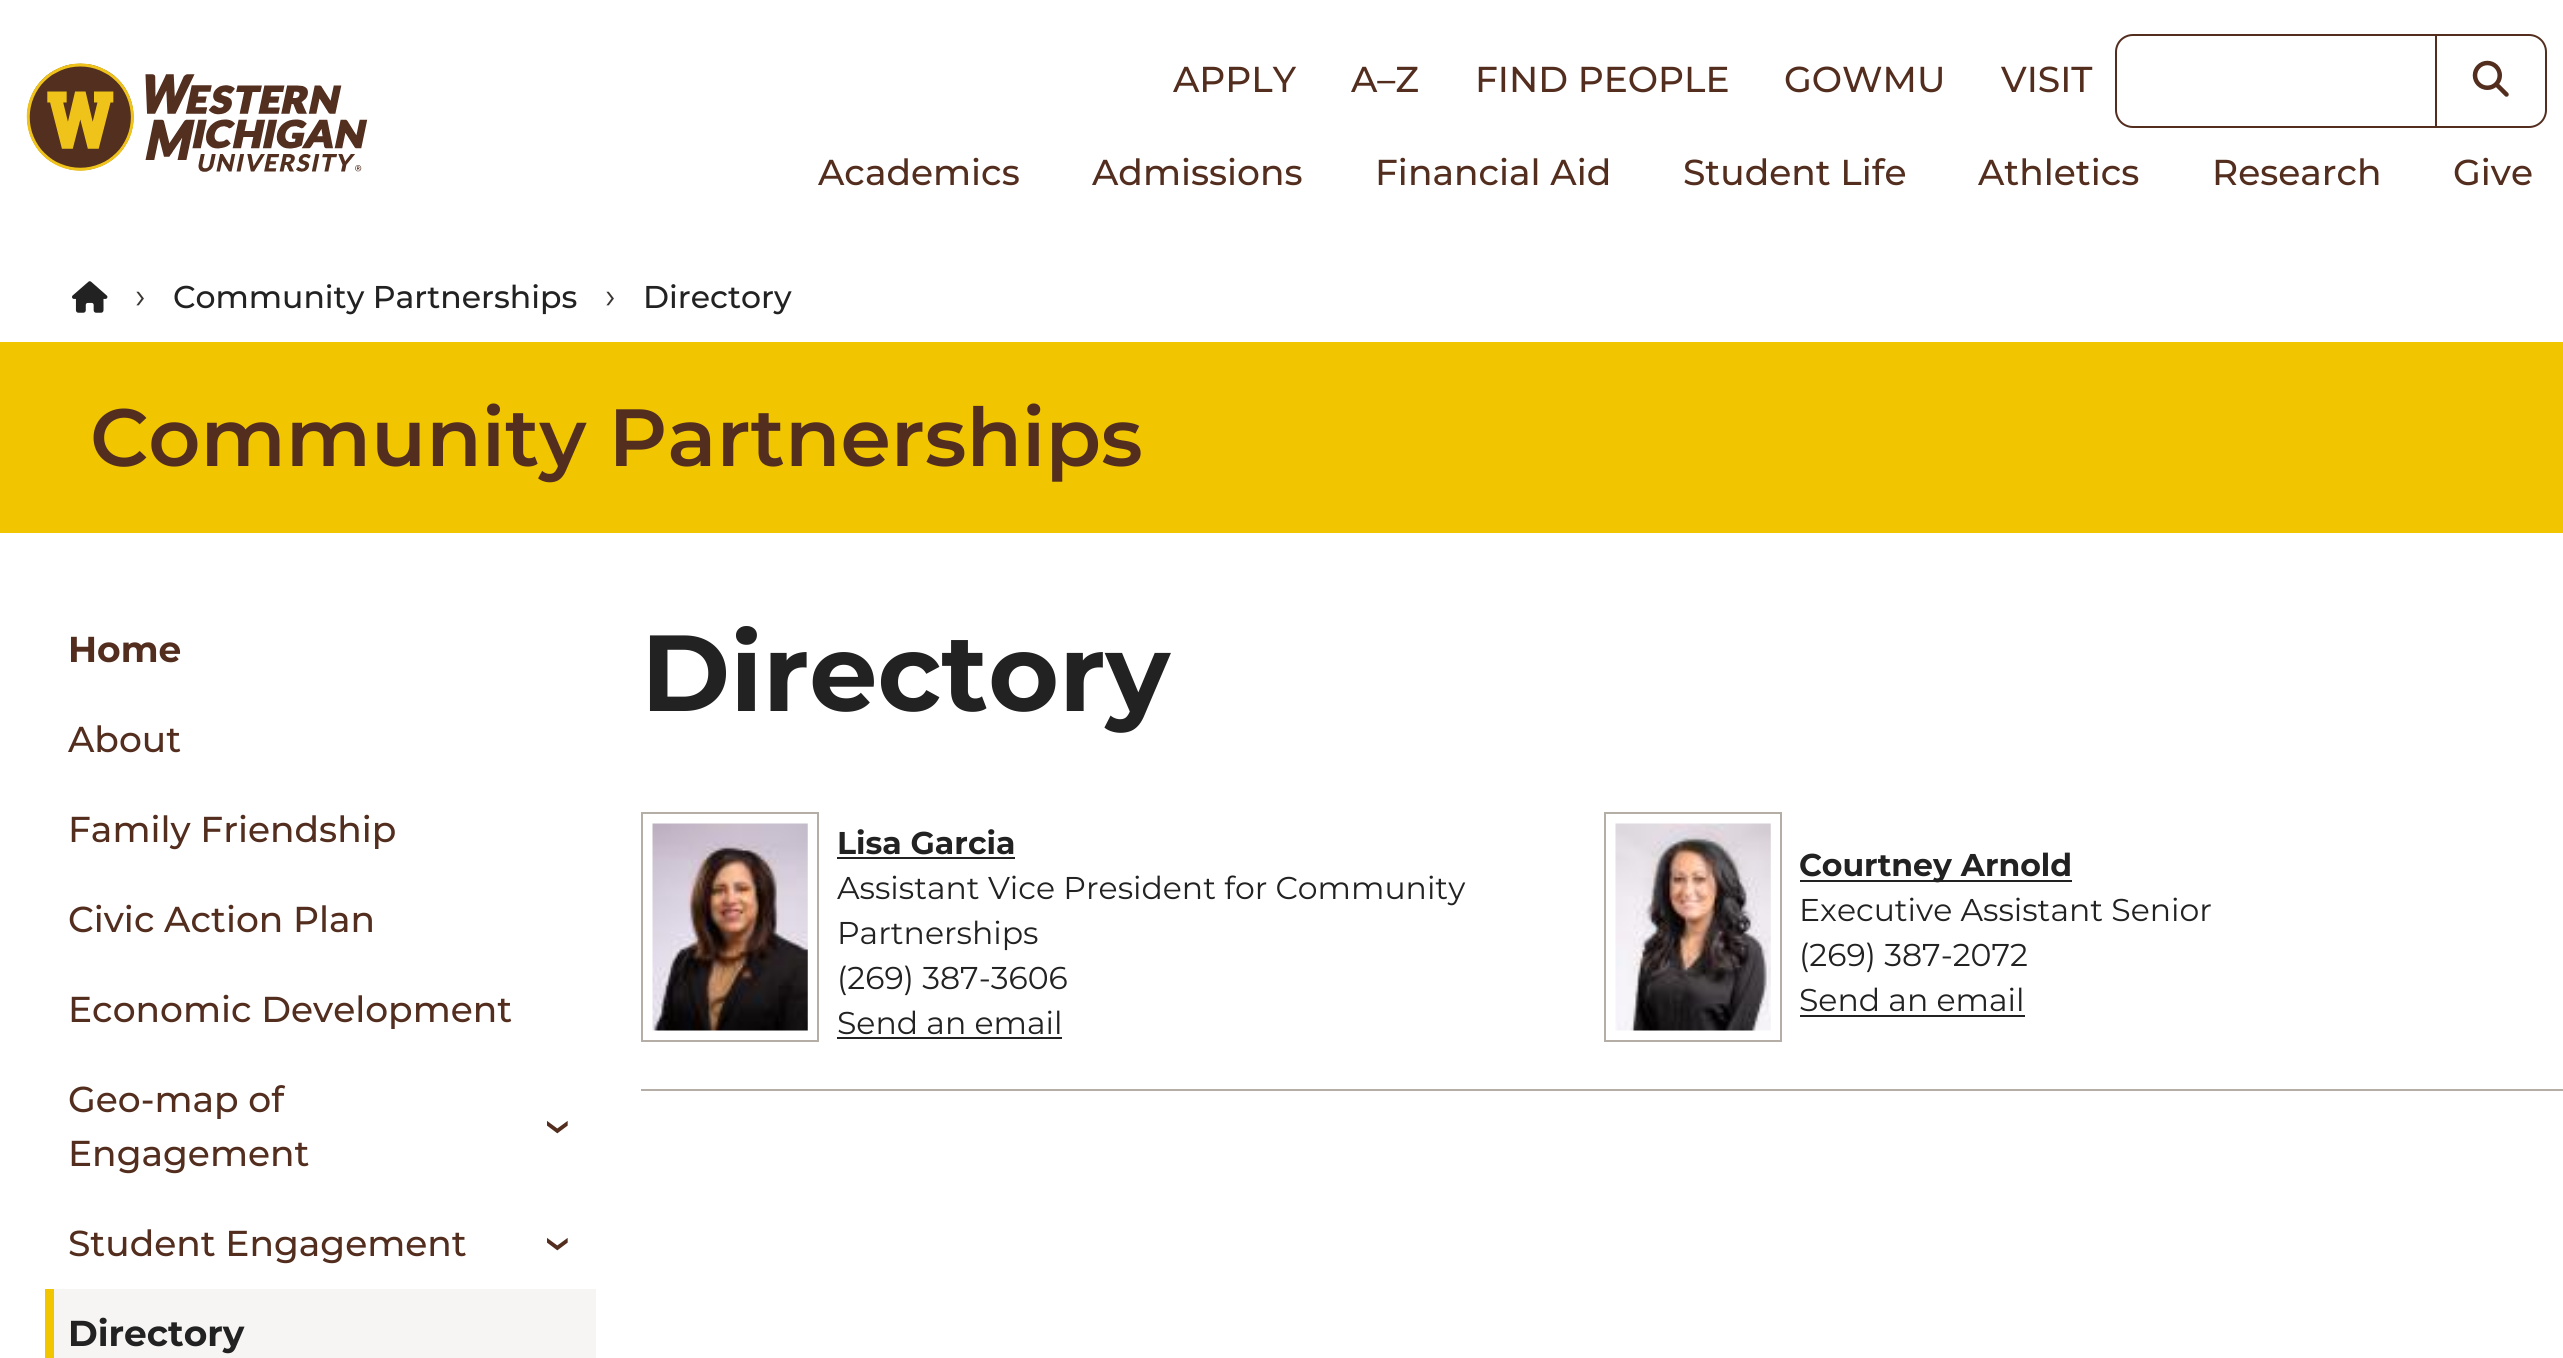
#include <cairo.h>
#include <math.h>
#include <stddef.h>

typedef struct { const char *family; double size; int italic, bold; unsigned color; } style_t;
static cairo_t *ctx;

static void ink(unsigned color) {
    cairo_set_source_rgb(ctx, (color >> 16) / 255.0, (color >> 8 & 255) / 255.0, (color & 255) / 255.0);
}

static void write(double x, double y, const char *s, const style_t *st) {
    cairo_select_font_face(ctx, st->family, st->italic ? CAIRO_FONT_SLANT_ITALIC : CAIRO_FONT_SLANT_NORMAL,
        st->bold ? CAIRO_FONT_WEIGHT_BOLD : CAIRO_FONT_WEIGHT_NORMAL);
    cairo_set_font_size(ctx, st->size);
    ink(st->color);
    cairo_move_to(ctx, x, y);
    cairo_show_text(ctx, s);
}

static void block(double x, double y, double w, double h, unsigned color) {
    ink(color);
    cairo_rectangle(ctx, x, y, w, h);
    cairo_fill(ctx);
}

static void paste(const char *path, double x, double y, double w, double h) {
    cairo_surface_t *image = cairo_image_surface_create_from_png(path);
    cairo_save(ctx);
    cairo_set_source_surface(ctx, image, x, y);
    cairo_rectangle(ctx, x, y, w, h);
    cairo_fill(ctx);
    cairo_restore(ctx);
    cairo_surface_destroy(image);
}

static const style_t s1 = {"Montserrat Medium", 36, 0, 0, 0x532e1f};
static const style_t s2 = {"Montserrat", 36, 0, 0, 0x3c3734};
static const style_t s3 = {"Montserrat Medium", 31.5, 0, 0, 0x222222};
static const style_t s4 = {"Montserrat SemiBold", 81, 0, 0, 0x532e1f};
static const style_t s5 = {"Montserrat", 36, 0, 1, 0x532e1f};
static const style_t s6 = {"Montserrat Medium", 54, 0, 0, 0x532e1f};
static const style_t s7 = {"Montserrat", 36, 0, 1, 0x222222};
static const style_t s8 = {"Montserrat", 108, 0, 1, 0x222222};
static const style_t s9 = {"Montserrat", 31.5, 0, 1, 0x222222};
static const style_t s10 = {"Montserrat", 31.5, 0, 0, 0x222222};

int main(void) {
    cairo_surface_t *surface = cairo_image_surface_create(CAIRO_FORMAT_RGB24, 2563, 1358);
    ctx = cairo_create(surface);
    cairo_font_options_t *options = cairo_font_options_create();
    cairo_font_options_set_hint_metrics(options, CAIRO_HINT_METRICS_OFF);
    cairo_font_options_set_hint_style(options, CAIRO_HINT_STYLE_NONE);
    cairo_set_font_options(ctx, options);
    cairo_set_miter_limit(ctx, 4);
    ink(0xffffff);
    cairo_paint(ctx);
    paste("pic1.png", 26, 63, 342, 109);
    write(1173, 92, "APPLY", &s1);
    write(1351, 92, "A–Z", &s1);
    write(1475, 92, "FIND PEOPLE", &s1);
    write(1784, 92, "GOWMU", &s1);
    write(2001, 92, "VISIT", &s1);
    cairo_new_path(ctx);
    cairo_move_to(ctx, 2133, 35);
    cairo_line_to(ctx, 2436, 35);
    cairo_line_to(ctx, 2436, 127);
    cairo_line_to(ctx, 2133, 127);
    cairo_curve_to(ctx, 2123.5, 127, 2116, 119.5, 2116, 110);
    cairo_line_to(ctx, 2116, 52);
    cairo_curve_to(ctx, 2116, 42.5, 2123.5, 35, 2133, 35);
    cairo_close_path(ctx);
    cairo_stroke(ctx);
    cairo_set_fill_rule(ctx, CAIRO_FILL_RULE_EVEN_ODD);
    cairo_new_path(ctx);
    cairo_move_to(ctx, 2437, 34);
    cairo_line_to(ctx, 2529, 34);
    cairo_curve_to(ctx, 2539, 34, 2547, 42, 2547, 52);
    cairo_line_to(ctx, 2547, 110);
    cairo_curve_to(ctx, 2547, 120, 2539, 128, 2529, 128);
    cairo_line_to(ctx, 2437, 128);
    cairo_close_path(ctx);
    cairo_move_to(ctx, 2437, 36);
    cairo_line_to(ctx, 2529, 36);
    cairo_curve_to(ctx, 2538, 36, 2545, 43, 2545, 52);
    cairo_line_to(ctx, 2545, 110);
    cairo_curve_to(ctx, 2545, 119, 2538, 126, 2529, 126);
    cairo_line_to(ctx, 2437, 126);
    cairo_close_path(ctx);
    cairo_fill(ctx);
    paste("pic2.png", 2472, 60, 37, 37);
    write(818, 185, "Academics", &s1);
    write(1092, 185, "Admissions", &s1);
    write(1375, 185, "Financial Aid", &s1);
    write(1683, 185, "Student Life", &s1);
    write(1978, 185, "Athletics", &s1);
    write(2212, 185, "Research", &s1);
    write(2453, 185, "Give", &s1);
    paste("pic3.png", 72, 281, 36, 32);
    write(135, 308, "›", &s2);
    write(173, 308, "Community Partnerships", &s3);
    write(605, 308, "›", &s2);
    write(643, 308, "Directory", &s3);
    block(0, 342, 2563, 191, 0xf1c500);
    write(90, 466, "Community Partnerships", &s4);
    write(68, 662, "Home", &s5);
    write(68, 752, "About", &s1);
    write(68, 842, "Family Friendship", &s1);
    write(68, 932, "Civic Action Plan", &s1);
    write(68, 1022, "Economic Development", &s1);
    write(68, 1112, "Geo-map of", &s1);
    write(68, 1166, "Engagement", &s1);
    cairo_save(ctx);
    cairo_translate(ctx, 543, 1119);
    cairo_rotate(ctx, 90 * M_PI / 180);
    write(0, 0, "›", &s6);
    cairo_restore(ctx);
    write(68, 1256, "Student Engagement", &s1);
    cairo_save(ctx);
    cairo_translate(ctx, 543, 1236);
    cairo_rotate(ctx, 90 * M_PI / 180);
    write(0, 0, "›", &s6);
    cairo_restore(ctx);
    block(54, 1289, 542, 69, 0xf6f5f4);
    block(45, 1289, 9, 69, 0xf1c500);
    write(68, 1346, "Directory", &s7);
    write(641, 711, "Directory", &s8);
    block(641, 1089, 1922, 2, 0xb4aea7);
    cairo_rectangle(ctx, 642, 813, 176, 228);
    cairo_stroke(ctx);
    paste("pic4.png", 652, 823, 156, 208);
    write(837, 854, "Lisa Garcia", &s9);
    block(837, 857, 178, 2, 0x222222);
    write(837, 899, "Assistant Vice President for Community", &s10);
    write(837, 944, "Partnerships", &s10);
    write(837, 989, "(269) 387-3606", &s10);
    write(837, 1034, "Send an email", &s10);
    block(837, 1037, 225, 2, 0x222222);
    cairo_rectangle(ctx, 1605, 813, 176, 228);
    ink(0xb4aea7);
    cairo_stroke(ctx);
    paste("pic5.png", 1615, 823, 156, 208);
    block(1800, 880, 272, 2, 0x222222);
    write(1799, 876, "Courtney Arnold", &s9);
    write(1799, 921, "Executive Assistant Senior", &s10);
    write(1799, 966, "(269) 387-2072", &s10);
    write(1799, 1011, "Send an email", &s10);
    block(1800, 1015, 225, 2, 0x222222);
    cairo_surface_write_to_png(surface, "screenshot.png");
    cairo_font_options_destroy(options);
    cairo_destroy(ctx);
    cairo_surface_destroy(surface);
    return 0;
}
